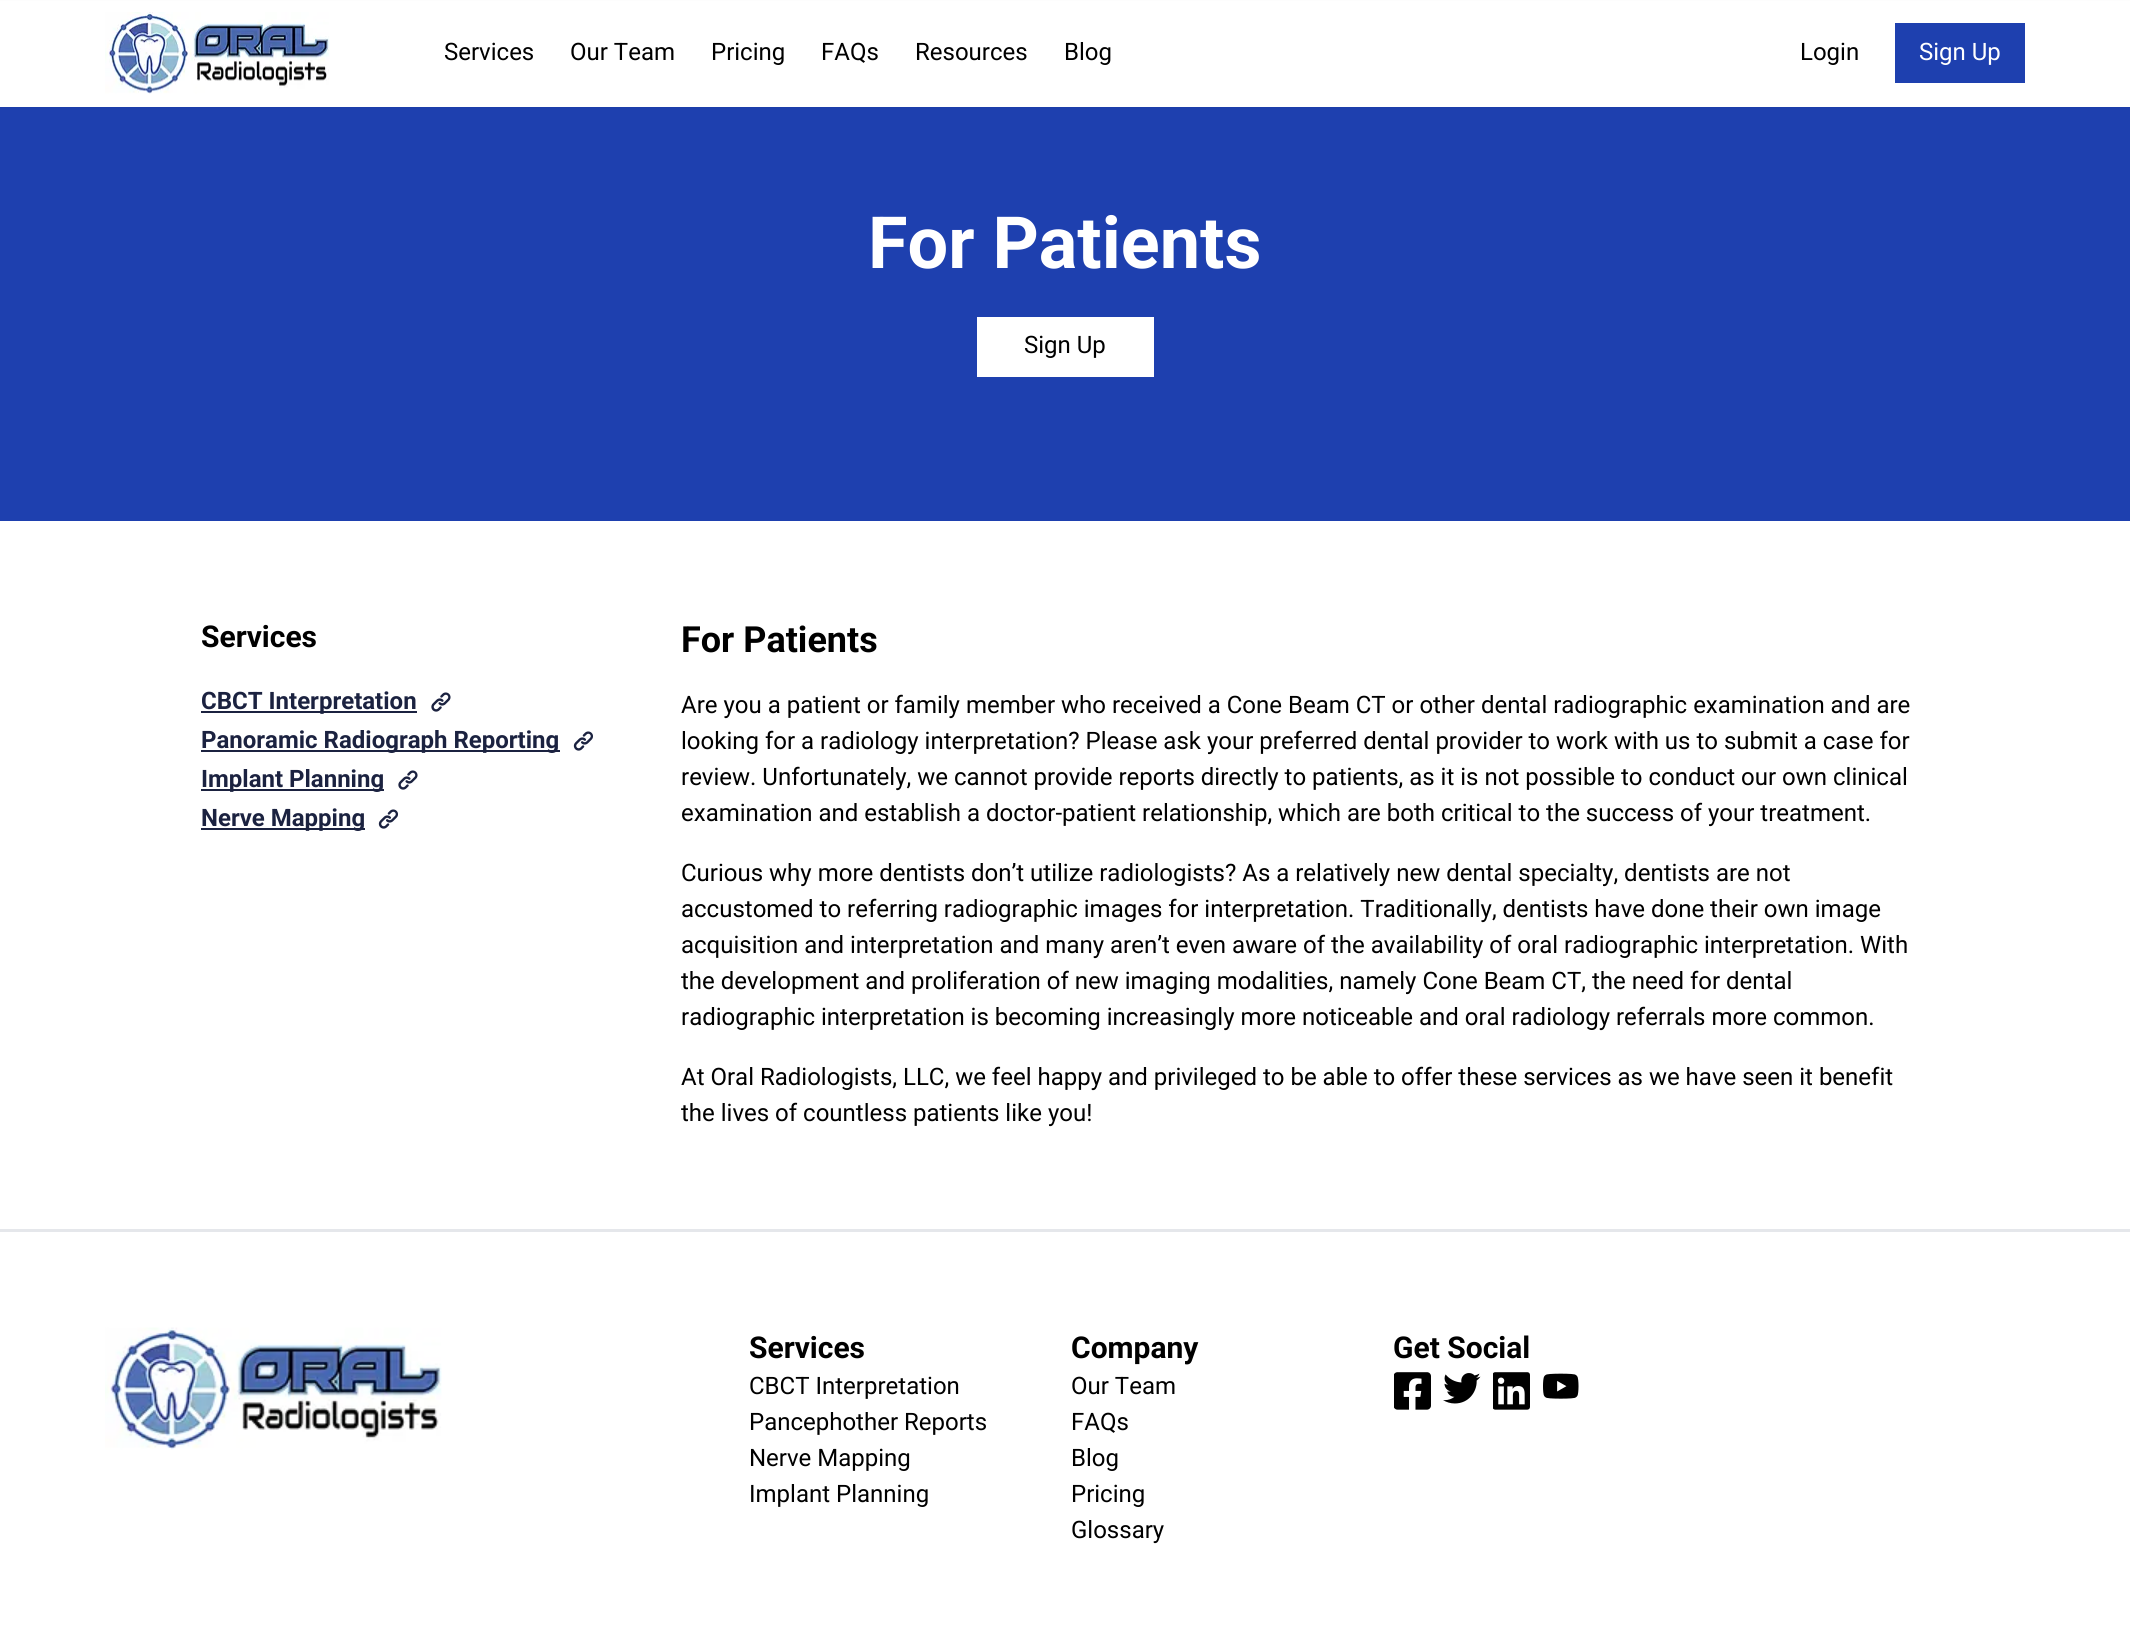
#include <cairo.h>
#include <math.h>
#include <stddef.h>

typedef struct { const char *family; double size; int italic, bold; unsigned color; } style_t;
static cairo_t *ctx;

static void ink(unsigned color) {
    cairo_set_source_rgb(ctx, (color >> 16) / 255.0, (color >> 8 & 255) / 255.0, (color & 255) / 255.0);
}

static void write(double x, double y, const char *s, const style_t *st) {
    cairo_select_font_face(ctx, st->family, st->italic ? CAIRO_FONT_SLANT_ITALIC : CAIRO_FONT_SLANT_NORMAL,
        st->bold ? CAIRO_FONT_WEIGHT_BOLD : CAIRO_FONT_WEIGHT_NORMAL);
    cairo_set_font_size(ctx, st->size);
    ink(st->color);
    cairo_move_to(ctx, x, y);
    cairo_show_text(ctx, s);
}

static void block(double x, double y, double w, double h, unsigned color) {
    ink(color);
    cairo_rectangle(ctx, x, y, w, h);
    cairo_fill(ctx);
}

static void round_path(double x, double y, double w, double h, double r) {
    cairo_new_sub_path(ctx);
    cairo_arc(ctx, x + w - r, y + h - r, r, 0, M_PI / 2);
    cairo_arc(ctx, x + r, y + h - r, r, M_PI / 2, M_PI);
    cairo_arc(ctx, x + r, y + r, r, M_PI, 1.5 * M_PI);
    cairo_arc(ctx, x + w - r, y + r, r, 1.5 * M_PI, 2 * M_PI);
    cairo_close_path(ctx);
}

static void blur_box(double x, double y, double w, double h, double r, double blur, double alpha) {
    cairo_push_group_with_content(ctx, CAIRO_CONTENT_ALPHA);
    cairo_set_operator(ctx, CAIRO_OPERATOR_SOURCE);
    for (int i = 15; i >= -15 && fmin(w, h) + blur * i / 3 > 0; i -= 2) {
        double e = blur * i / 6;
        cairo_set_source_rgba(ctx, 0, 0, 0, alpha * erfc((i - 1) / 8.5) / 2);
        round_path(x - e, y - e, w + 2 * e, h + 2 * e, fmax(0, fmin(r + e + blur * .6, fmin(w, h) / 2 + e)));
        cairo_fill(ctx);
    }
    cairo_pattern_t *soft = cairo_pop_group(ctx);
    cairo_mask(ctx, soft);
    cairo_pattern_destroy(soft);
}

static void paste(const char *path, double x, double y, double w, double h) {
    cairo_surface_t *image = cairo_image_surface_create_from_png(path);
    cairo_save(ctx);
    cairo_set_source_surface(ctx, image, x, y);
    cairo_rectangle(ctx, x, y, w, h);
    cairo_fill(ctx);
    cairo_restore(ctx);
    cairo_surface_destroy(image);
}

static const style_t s1 = {"Roboto", 24, 0, 0, 0x000000};
static const style_t s2 = {"Roboto", 24, 0, 0, 0xffffff};
static const style_t s3 = {"Roboto", 72, 0, 1, 0xffffff};
static const style_t s4 = {"Roboto", 30, 0, 1, 0x000000};
static const style_t s5 = {"Roboto", 24, 0, 1, 0x1b2240};
static const style_t s6 = {"Roboto", 36, 0, 1, 0x000000};

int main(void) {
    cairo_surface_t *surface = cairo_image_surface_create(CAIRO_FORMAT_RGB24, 2130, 1644);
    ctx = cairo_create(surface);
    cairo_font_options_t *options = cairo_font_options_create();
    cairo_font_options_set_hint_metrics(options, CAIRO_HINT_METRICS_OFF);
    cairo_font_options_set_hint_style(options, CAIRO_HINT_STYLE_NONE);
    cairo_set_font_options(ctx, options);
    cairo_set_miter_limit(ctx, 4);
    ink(0xffffff);
    cairo_paint(ctx);
    block(0, 107, 2130, 414, 0x1e40af);
    ink(0x000000);
    blur_box(0, 2, 2130, 106, 0, 1.5, 0.05);
    block(0, 1, 2130, 106, 0xffffff);
    paste("pic1.png", 105, 12, 225, 82);
    write(444, 60, "Services", &s1);
    write(570, 60, "Our Team", &s1);
    write(711, 60, "Pricing", &s1);
    write(821, 60, "FAQs", &s1);
    write(915, 60, "Resources", &s1);
    write(1064, 60, "Blog", &s1);
    write(1800, 60, "Login", &s1);
    block(1895, 23, 130, 60, 0x1e40af);
    write(1919, 60, "Sign Up", &s2);
    write(868, 268, "For Patients", &s3);
    block(977, 317, 177, 60, 0xffffff);
    write(1024, 353, "Sign Up", &s1);
    write(201, 647, "Services", &s4);
    block(201, 711, 216, 2, 0x1b2240);
    write(201, 709, "CBCT Interpretation", &s5);
    paste("pic2.png", 431, 692, 20, 20);
    block(201, 750, 359, 2, 0x1b2240);
    write(201, 748, "Panoramic Radiograph Reporting", &s5);
    paste("pic3.png", 573, 731, 20, 20);
    block(201, 789, 183, 2, 0x1b2240);
    write(201, 787, "Implant Planning", &s5);
    paste("pic2.png", 398, 770, 20, 20);
    block(201, 828, 164, 2, 0x1b2240);
    write(201, 826, "Nerve Mapping", &s5);
    paste("pic3.png", 378, 809, 20, 20);
    write(681, 652, "For Patients", &s6);
    write(681, 713, "Are you a patient or family member who received a Cone Beam CT or other dental radiographic examination and are", &s1);
    write(681, 749, "looking for a radiology interpretation? Please ask your preferred dental provider to work with us to submit a case for", &s1);
    write(681, 785, "review. Unfortunately, we cannot provide reports directly to patients, as it is not possible to conduct our own clinical", &s1);
    write(681, 821, "examination and establish a doctor-patient relationship, which are both critical to the success of your treatment.", &s1);
    write(681, 881, "Curious why more dentists don’t utilize radiologists? As a relatively new dental specialty, dentists are not", &s1);
    write(681, 917, "accustomed to referring radiographic images for interpretation. Traditionally, dentists have done their own image", &s1);
    write(681, 953, "acquisition and interpretation and many aren’t even aware of the availability of oral radiographic interpretation. With", &s1);
    write(681, 989, "the development and proliferation of new imaging modalities, namely Cone Beam CT, the need for dental", &s1);
    write(681, 1025, "radiographic interpretation is becoming increasingly more noticeable and oral radiology referrals more common.", &s1);
    write(681, 1085, "At Oral Radiologists, LLC, we feel happy and privileged to be able to offer these services as we have seen it benefit", &s1);
    write(681, 1121, "the lives of countless patients like you!", &s1);
    block(0, 1229, 2130, 3, 0xe5e7eb);
    paste("pic4.png", 105, 1327, 337, 123);
    write(749, 1358, "Services", &s4);
    write(749, 1394, "CBCT Interpretation", &s1);
    write(749, 1430, "Pancephother Reports", &s1);
    write(749, 1466, "Nerve Mapping", &s1);
    write(749, 1502, "Implant Planning", &s1);
    write(1071, 1358, "Company", &s4);
    write(1071, 1394, "Our Team", &s1);
    write(1071, 1430, "FAQs", &s1);
    write(1071, 1466, "Blog", &s1);
    write(1071, 1502, "Pricing", &s1);
    write(1071, 1538, "Glossary", &s1);
    write(1393, 1358, "Get Social", &s4);
    paste("pic5.png", 1394, 1372, 37, 38);
    paste("pic6.png", 1443, 1373, 38, 31);
    paste("pic7.png", 1493, 1372, 37, 38);
    paste("pic8.png", 1543, 1373, 36, 26);
    cairo_surface_write_to_png(surface, "screenshot.png");
    cairo_font_options_destroy(options);
    cairo_destroy(ctx);
    cairo_surface_destroy(surface);
    return 0;
}
